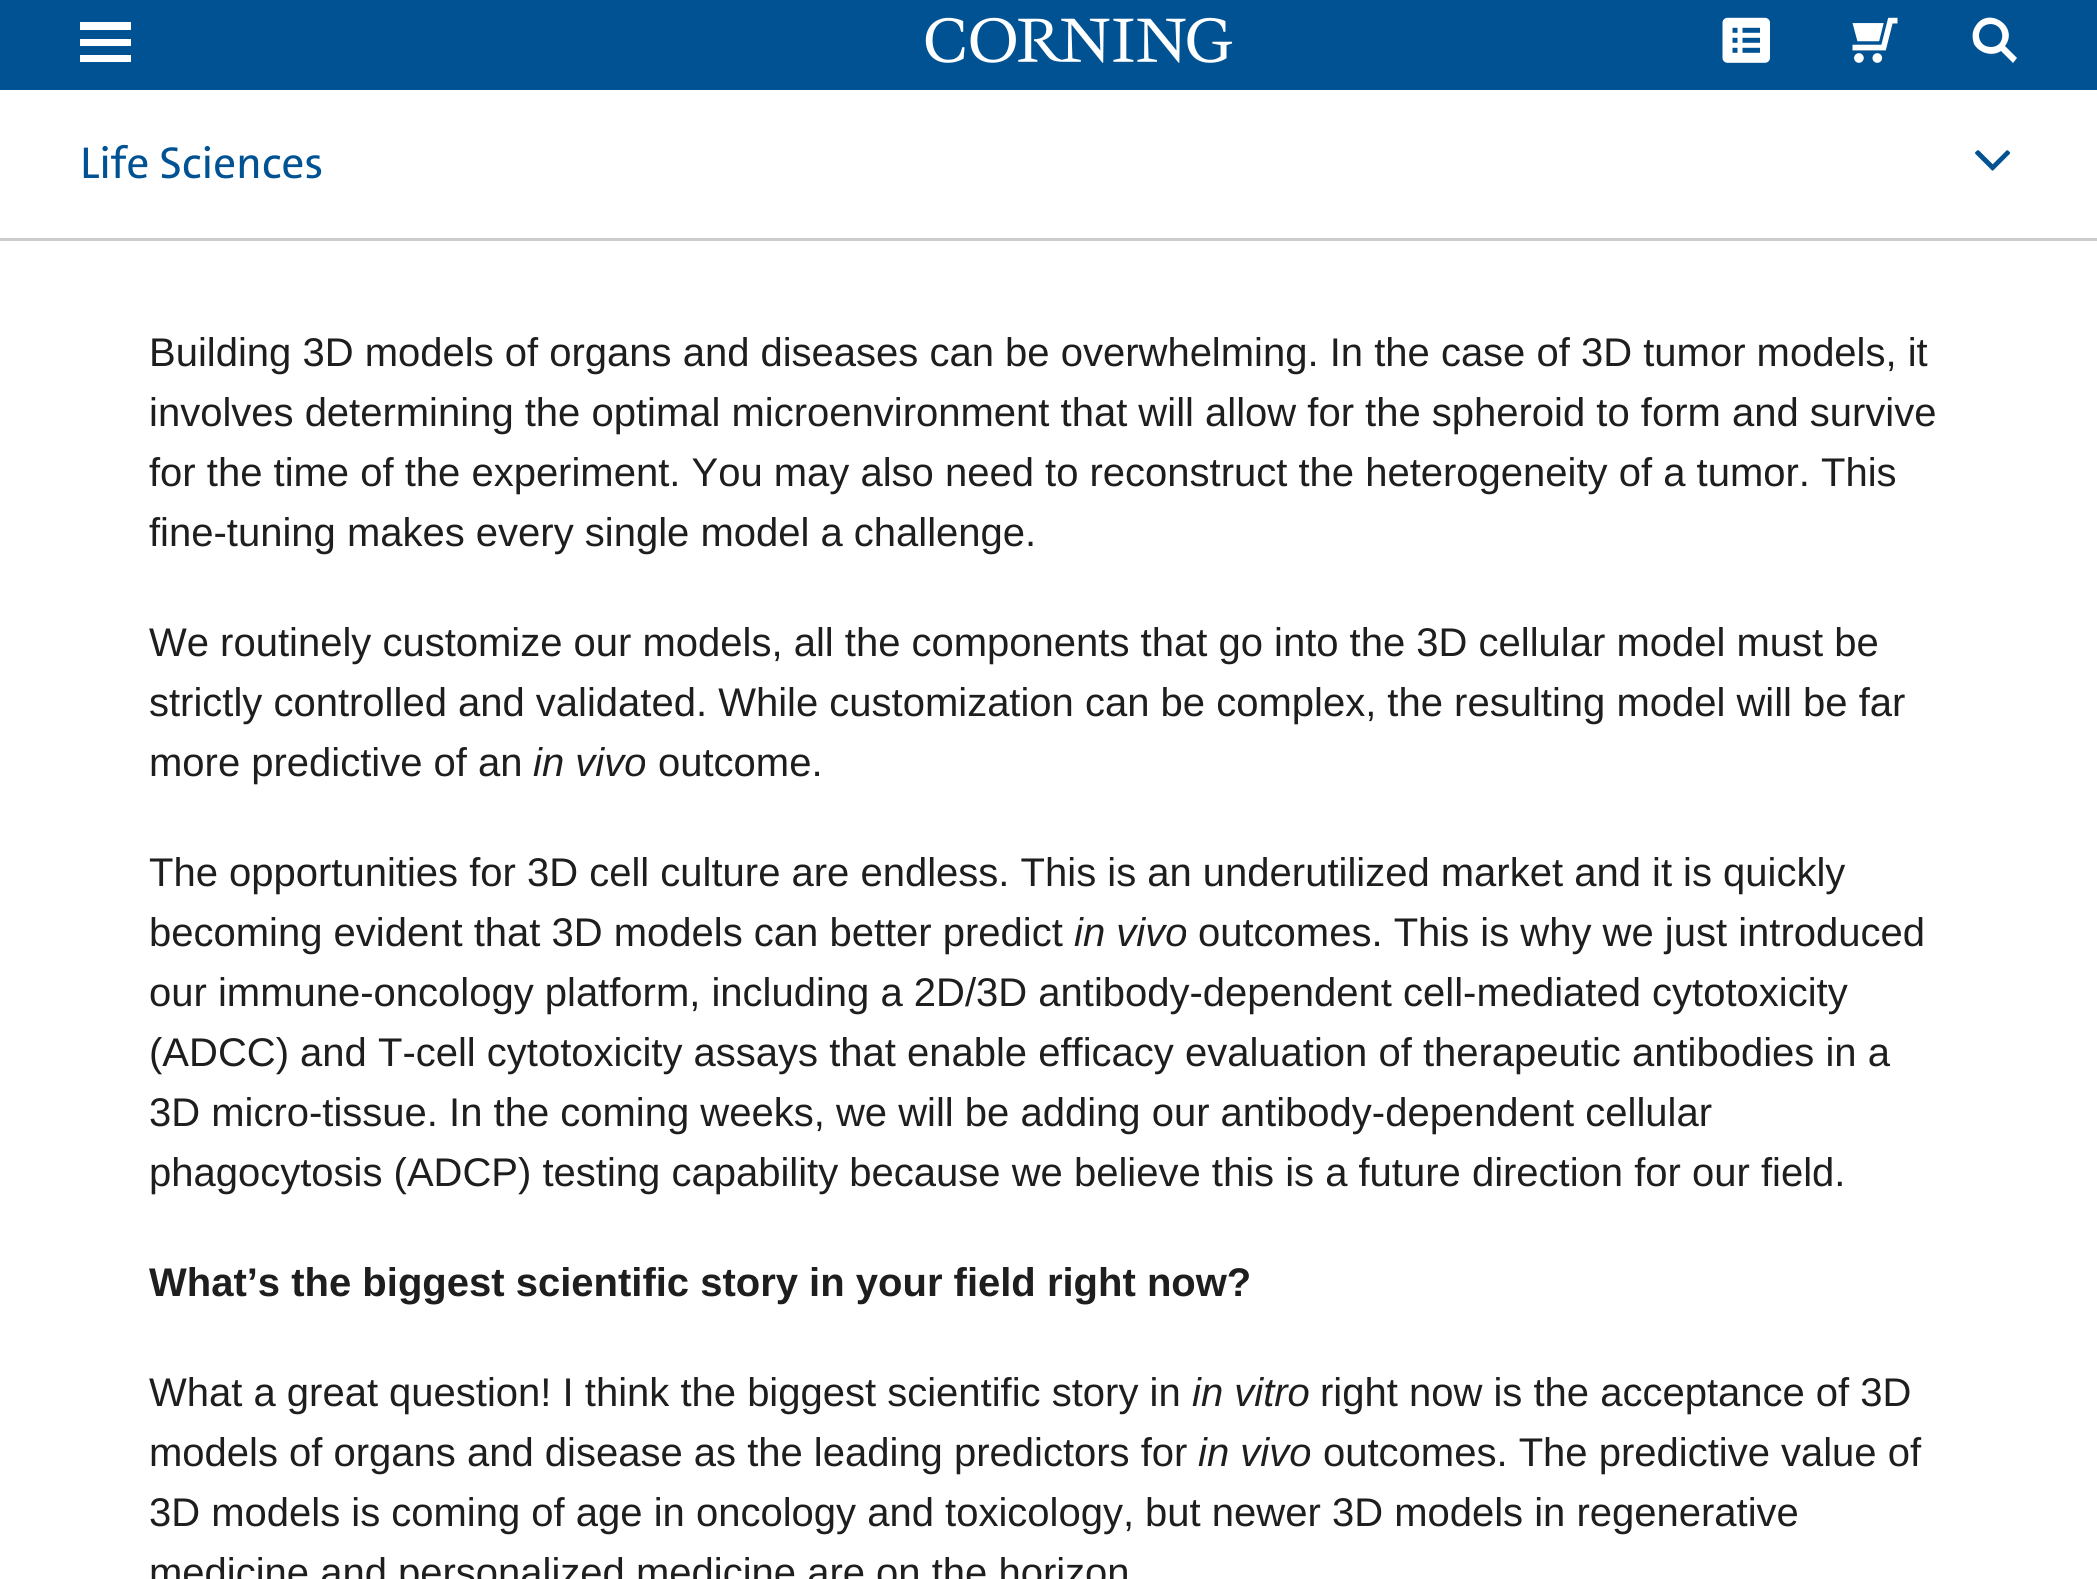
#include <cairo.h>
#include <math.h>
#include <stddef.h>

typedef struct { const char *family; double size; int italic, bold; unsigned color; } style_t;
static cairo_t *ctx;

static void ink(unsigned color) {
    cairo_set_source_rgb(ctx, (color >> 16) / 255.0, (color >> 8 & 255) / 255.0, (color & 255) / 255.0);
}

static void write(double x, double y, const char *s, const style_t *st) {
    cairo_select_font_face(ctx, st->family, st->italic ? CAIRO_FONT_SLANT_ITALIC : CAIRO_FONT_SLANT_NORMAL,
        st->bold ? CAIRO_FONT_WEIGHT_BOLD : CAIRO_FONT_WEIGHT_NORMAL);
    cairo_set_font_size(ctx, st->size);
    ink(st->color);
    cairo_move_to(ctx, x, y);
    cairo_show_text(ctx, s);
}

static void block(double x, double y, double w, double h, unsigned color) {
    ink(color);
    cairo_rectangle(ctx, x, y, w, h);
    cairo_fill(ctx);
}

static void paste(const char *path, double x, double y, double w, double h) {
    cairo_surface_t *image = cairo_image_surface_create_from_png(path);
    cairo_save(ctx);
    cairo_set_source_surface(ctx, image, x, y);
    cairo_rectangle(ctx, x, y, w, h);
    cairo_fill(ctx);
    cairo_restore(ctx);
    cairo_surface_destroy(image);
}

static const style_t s1 = {"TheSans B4", 45, 0, 0, 0x005293};
static const style_t s2 = {"Liberation Sans", 40, 0, 0, 0x1e1e1e};
static const style_t s3 = {"Liberation Sans", 40, 1, 0, 0x1e1e1e};
static const style_t s4 = {"Liberation Sans", 40, 0, 1, 0x1e1e1e};

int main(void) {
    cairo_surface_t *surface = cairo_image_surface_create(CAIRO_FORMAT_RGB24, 2097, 1579);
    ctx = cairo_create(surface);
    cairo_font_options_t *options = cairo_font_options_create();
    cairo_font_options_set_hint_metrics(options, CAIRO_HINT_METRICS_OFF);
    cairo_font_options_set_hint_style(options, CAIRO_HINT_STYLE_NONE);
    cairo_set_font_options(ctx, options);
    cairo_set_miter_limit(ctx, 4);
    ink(0xffffff);
    cairo_paint(ctx);
    block(0, 0, 2097, 90, 0x005293);
    ink(0xffffff);
    cairo_new_path(ctx);
    cairo_move_to(ctx, 80, 22);
    cairo_line_to(ctx, 131, 22);
    cairo_line_to(ctx, 131, 30);
    cairo_line_to(ctx, 80, 30);
    cairo_close_path(ctx);
    cairo_move_to(ctx, 80, 39);
    cairo_line_to(ctx, 131, 39);
    cairo_line_to(ctx, 131, 46);
    cairo_line_to(ctx, 80, 46);
    cairo_close_path(ctx);
    cairo_move_to(ctx, 80, 55);
    cairo_line_to(ctx, 131, 55);
    cairo_line_to(ctx, 131, 62);
    cairo_line_to(ctx, 80, 62);
    cairo_close_path(ctx);
    cairo_fill(ctx);
    paste("pic1.png", 925, 17, 308, 46);
    paste("pic2.png", 1722, 17, 48, 46);
    paste("pic3.png", 1852, 17, 46, 46);
    cairo_new_path(ctx);
    cairo_move_to(ctx, 2017, 58);
    cairo_line_to(ctx, 2005, 46);
    cairo_curve_to(ctx, 2020, 26, 1987, 5, 1975, 27);
    cairo_curve_to(ctx, 1972, 32, 1972, 38, 1974, 44);
    cairo_curve_to(ctx, 1979, 53, 1992, 57, 2001, 51);
    cairo_line_to(ctx, 2013, 63);
    cairo_close_path(ctx);
    cairo_move_to(ctx, 1991, 47);
    cairo_curve_to(ctx, 1975, 47, 1975, 24, 1991, 24);
    cairo_curve_to(ctx, 2006, 25, 2006, 47, 1991, 47);
    cairo_close_path(ctx);
    cairo_fill(ctx);
    block(0, 238, 2097, 3, 0xcccccc);
    write(80, 178, "Life Sciences", &s1);
    paste("pic4.png", 1975, 150, 36, 21);
    write(149, 366, "Building 3D models of organs and diseases can be overwhelming. In the case of 3D tumor models, it", &s2);
    write(149, 426, "involves determining the optimal microenvironment that will allow for the spheroid to form and survive", &s2);
    write(149, 486, "for the time of the experiment. You may also need to reconstruct the heterogeneity of a tumor. This", &s2);
    write(149, 546, "fine-tuning makes every single model a challenge.", &s2);
    write(149, 656, "We routinely customize our models, all the components that go into the 3D cellular model must be", &s2);
    write(149, 716, "strictly controlled and validated. While customization can be complex, the resulting model will be far", &s2);
    write(149, 776, "more predictive of an", &s2);
    write(533, 776, "in vivo", &s3);
    write(658, 776, "outcome.", &s2);
    write(149, 886, "The opportunities for 3D cell culture are endless. This is an underutilized market and it is quickly", &s2);
    write(149, 946, "becoming evident that 3D models can better predict", &s2);
    write(1074, 946, "in vivo", &s3);
    write(1198, 946, "outcomes. This is why we just introduced", &s2);
    write(149, 1006, "our immune-oncology platform, including a 2D/3D antibody-dependent cell-mediated cytotoxicity", &s2);
    write(149, 1066, "(ADCC) and T-cell cytotoxicity assays that enable efficacy evaluation of therapeutic antibodies in a", &s2);
    write(149, 1126, "3D micro-tissue. In the coming weeks, we will be adding our antibody-dependent cellular", &s2);
    write(149, 1186, "phagocytosis (ADCP) testing capability because we believe this is a future direction for our field.", &s2);
    write(149, 1296, "What’s the biggest scientific story in your field right now?", &s4);
    write(149, 1406, "What a great question! I think the biggest scientific story in", &s2);
    write(1192, 1406, "in vitro", &s3);
    write(1320, 1406, "right now is the acceptance of 3D", &s2);
    write(149, 1466, "models of organs and disease as the leading predictors for", &s2);
    write(1198, 1466, "in vivo", &s3);
    write(1323, 1466, "outcomes. The predictive value of", &s2);
    write(149, 1526, "3D models is coming of age in oncology and toxicology, but newer 3D models in regenerative", &s2);
    write(149, 1586, "medicine and personalized medicine are on the horizon", &s2);
    cairo_surface_write_to_png(surface, "screenshot.png");
    cairo_font_options_destroy(options);
    cairo_destroy(ctx);
    cairo_surface_destroy(surface);
    return 0;
}
